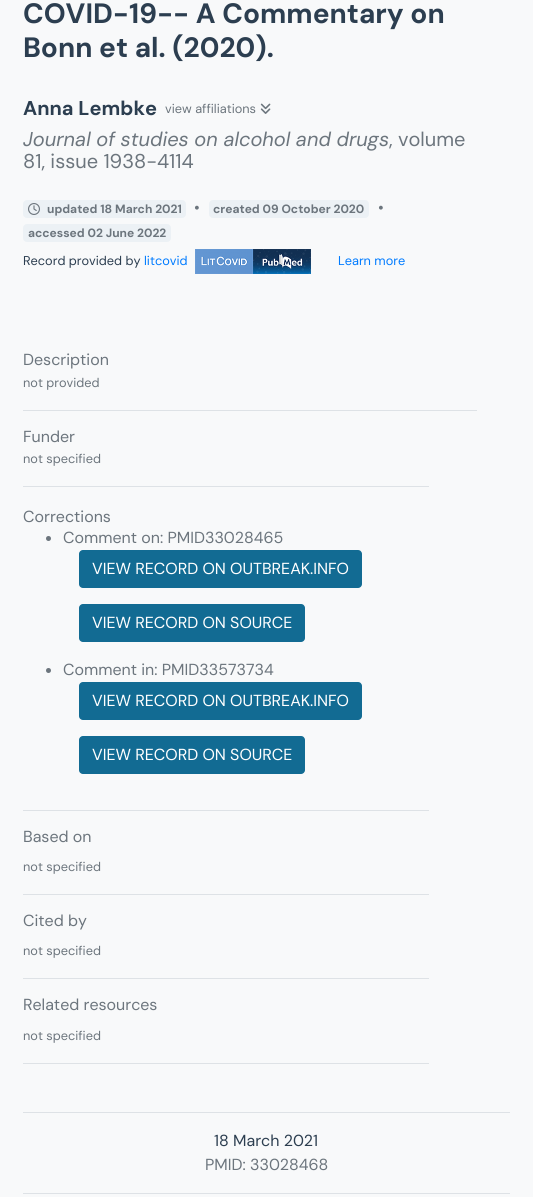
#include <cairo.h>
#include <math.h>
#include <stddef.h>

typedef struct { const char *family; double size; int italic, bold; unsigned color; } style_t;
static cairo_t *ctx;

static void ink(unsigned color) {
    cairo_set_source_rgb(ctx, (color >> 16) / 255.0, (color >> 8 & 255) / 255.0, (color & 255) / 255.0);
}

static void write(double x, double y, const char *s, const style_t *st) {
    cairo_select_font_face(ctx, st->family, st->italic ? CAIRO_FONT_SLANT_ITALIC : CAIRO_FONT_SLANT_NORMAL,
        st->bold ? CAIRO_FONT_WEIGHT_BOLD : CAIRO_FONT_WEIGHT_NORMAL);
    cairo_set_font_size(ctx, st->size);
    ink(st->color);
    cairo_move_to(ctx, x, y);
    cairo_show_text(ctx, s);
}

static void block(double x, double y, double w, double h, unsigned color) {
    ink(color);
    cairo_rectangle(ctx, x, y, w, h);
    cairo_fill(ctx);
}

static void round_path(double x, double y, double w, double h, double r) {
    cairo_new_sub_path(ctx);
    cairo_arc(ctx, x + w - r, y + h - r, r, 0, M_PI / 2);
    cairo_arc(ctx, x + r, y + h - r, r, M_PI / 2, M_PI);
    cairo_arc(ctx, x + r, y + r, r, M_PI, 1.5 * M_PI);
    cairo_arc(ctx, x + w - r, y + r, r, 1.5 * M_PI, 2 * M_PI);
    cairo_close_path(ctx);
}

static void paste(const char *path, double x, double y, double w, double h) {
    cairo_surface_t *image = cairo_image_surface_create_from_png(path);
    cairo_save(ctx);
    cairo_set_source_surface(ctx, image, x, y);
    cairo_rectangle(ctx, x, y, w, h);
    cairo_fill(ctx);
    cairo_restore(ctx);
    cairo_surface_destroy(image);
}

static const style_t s1 = {"DM Sans", 28, 0, 1, 0x2c3e50};
static const style_t s2 = {"DM Sans", 20, 0, 1, 0x2c3e50};
static const style_t s3 = {"DM Sans", 12.75, 0, 0, 0x6c757d};
static const style_t s4 = {"DM Sans", 20, 1, 0, 0x6c757d};
static const style_t s5 = {"DM Sans", 20, 0, 0, 0x6c757d};
static const style_t s6 = {"DM Sans", 12, 0, 1, 0x6c757d};
static const style_t s7 = {"DM Sans", 16, 0, 0, 0x6c757d};
static const style_t s8 = {"DM Sans", 12.75, 0, 0, 0x2c3e50};
static const style_t s9 = {"DM Sans", 12.75, 0, 0, 0x007bff};
static const style_t s10 = {"DM Sans", 16, 0, 0, 0xffffff};
static const style_t s11 = {"DM Sans", 16, 0, 0, 0x2c3e50};

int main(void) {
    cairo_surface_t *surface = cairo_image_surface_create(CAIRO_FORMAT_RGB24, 533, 1197);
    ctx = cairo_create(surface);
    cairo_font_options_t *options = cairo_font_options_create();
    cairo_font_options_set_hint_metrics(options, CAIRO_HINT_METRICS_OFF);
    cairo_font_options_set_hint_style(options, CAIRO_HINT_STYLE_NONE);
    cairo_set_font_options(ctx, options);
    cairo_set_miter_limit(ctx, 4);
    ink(0xf8f9fa);
    cairo_paint(ctx);
    block(23, 410, 454, 1, 0xdee2e6);
    write(23, 23, "COVID-19-- A Commentary on", &s1);
    write(23, 57, "Bonn et al. (2020).", &s1);
    write(23, 115, "Anna Lembke", &s2);
    write(165, 113, "view affiliations", &s3);
    paste("pic1.png", 260, 103, 11, 11);
    write(23, 146, "Journal of studies on alcohol and drugs", &s4);
    write(389, 146, ", volume", &s5);
    write(23, 168, "81, issue 1938-4114", &s5);
    ink(0xecf1f5);
    round_path(23, 200, 163, 18, 4);
    cairo_fill(ctx);
    paste("pic2.png", 28, 203, 12, 12);
    write(47, 213, "updated 18 March 2021", &s6);
    write(194, 213, "•", &s7);
    ink(0xecf1f5);
    round_path(209, 200, 160, 18, 4);
    cairo_fill(ctx);
    write(213, 213, "created 09 October 2020", &s6);
    write(378, 213, "•", &s7);
    ink(0xecf1f5);
    round_path(23, 224, 148, 18, 4);
    cairo_fill(ctx);
    write(28, 237, "accessed 02 June 2022", &s6);
    write(23, 265, "Record provided by", &s8);
    write(144, 265, "litcovid", &s9);
    paste("pic3.png", 195, 249, 116, 25);
    write(338, 265, "Learn more", &s9);
    write(23, 365, "Description", &s7);
    write(23, 387, "not provided", &s3);
    block(23, 486, 406, 1, 0xdee2e6);
    write(23, 442, "Funder", &s7);
    write(23, 463, "not specified", &s3);
    block(23, 810, 406, 1, 0xdee2e6);
    write(23, 522, "Corrections", &s7);
    cairo_new_path(ctx);
    cairo_arc(ctx, 48.5, 538.5, 2.5, 0, 2 * M_PI);
    cairo_fill(ctx);
    write(63, 543, "Comment on: PMID33028465", &s7);
    ink(0x126b93);
    round_path(79, 550, 283, 38, 4);
    cairo_fill(ctx);
    write(92, 574, "VIEW RECORD ON OUTBREAK.INFO", &s10);
    ink(0x126b93);
    round_path(79, 604, 226, 38, 4);
    cairo_fill(ctx);
    write(92, 628, "VIEW RECORD ON SOURCE", &s10);
    ink(0x6c757d);
    cairo_new_path(ctx);
    cairo_arc(ctx, 48.5, 670.5, 2.5, 0, 2 * M_PI);
    cairo_fill(ctx);
    write(63, 675, "Comment in: PMID33573734", &s7);
    ink(0x126b93);
    round_path(79, 682, 283, 38, 4);
    cairo_fill(ctx);
    write(92, 706, "VIEW RECORD ON OUTBREAK.INFO", &s10);
    ink(0x126b93);
    round_path(79, 736, 226, 38, 4);
    cairo_fill(ctx);
    write(92, 760, "VIEW RECORD ON SOURCE", &s10);
    block(23, 894, 406, 1, 0xdee2e6);
    write(23, 842, "Based on", &s7);
    write(23, 871, "not specified", &s3);
    block(23, 978, 406, 1, 0xdee2e6);
    write(23, 926, "Cited by", &s7);
    write(23, 955, "not specified", &s3);
    block(23, 1063, 406, 1, 0xdee2e6);
    write(23, 1010, "Related resources", &s7);
    write(23, 1040, "not specified", &s3);
    block(23, 1112, 487, 1, 0xdee2e6);
    block(23, 1193, 487, 1, 0xdee2e6);
    write(214, 1146, "18 March 2021", &s11);
    write(205, 1170, "PMID: 33028468", &s7);
    cairo_surface_write_to_png(surface, "screenshot.png");
    cairo_font_options_destroy(options);
    cairo_destroy(ctx);
    cairo_surface_destroy(surface);
    return 0;
}
